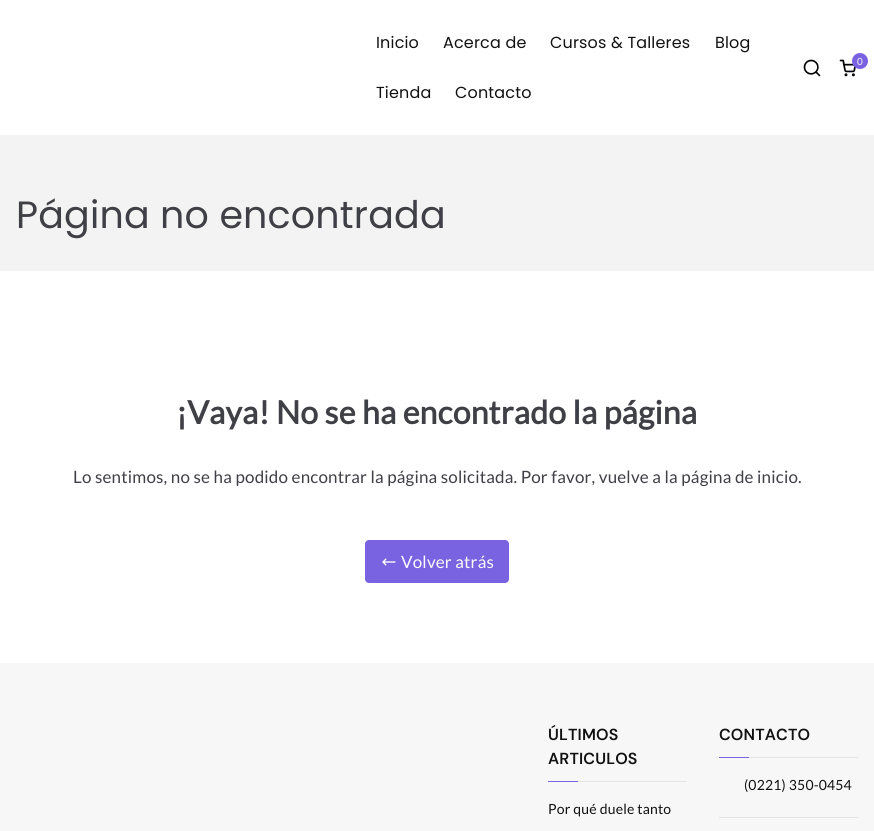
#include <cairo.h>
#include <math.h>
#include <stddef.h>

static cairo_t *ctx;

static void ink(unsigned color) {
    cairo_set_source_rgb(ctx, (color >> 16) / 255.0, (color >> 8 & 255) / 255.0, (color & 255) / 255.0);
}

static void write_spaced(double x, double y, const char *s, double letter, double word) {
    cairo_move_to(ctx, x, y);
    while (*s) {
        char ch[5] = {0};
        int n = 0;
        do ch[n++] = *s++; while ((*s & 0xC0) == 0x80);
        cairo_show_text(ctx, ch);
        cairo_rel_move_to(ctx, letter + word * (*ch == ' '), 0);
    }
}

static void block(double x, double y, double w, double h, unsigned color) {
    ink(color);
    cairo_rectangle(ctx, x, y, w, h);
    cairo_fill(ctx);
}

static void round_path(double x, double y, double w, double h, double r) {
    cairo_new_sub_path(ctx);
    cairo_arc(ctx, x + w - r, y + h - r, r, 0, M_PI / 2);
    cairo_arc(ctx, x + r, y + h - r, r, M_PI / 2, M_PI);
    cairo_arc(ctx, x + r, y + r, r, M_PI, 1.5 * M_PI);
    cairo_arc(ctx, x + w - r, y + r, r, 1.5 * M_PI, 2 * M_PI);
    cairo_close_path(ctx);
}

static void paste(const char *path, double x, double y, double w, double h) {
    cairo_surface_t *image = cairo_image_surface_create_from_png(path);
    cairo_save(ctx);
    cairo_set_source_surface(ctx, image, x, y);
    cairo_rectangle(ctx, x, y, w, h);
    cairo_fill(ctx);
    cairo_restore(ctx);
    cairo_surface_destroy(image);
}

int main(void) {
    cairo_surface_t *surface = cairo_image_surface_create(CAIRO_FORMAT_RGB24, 874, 831);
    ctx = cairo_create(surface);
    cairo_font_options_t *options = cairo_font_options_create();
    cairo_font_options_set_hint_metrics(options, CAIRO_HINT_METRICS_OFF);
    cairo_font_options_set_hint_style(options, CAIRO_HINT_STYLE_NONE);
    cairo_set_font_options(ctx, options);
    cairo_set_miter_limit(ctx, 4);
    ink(0xffffff);
    cairo_paint(ctx);
    cairo_select_font_face(ctx, "Poppins", CAIRO_FONT_SLANT_NORMAL, CAIRO_FONT_WEIGHT_NORMAL);
    cairo_set_font_size(ctx, 16);
    ink(0x111111);
    write_spaced(376, 48, "Inicio", 0.17, 0);
    write_spaced(443, 48, "Acerca de", 0.17, 0);
    write_spaced(550, 48, "Cursos & Talleres", 0.17, 0);
    write_spaced(715, 48, "Blog", 0.17, 0);
    write_spaced(376, 98, "Tienda", 0.17, 0);
    write_spaced(455, 98, "Contacto", 0.17, 0);
    paste("pic1.png", 803, 59, 18, 18);
    paste("pic2.png", 839, 59, 17, 18);
    ink(0x7963e0);
    cairo_arc(ctx, 860, 61, 8, 0, 2 * M_PI);
    cairo_fill(ctx);
    cairo_select_font_face(ctx, "Lato", CAIRO_FONT_SLANT_NORMAL, CAIRO_FONT_WEIGHT_NORMAL);
    cairo_set_font_size(ctx, 10);
    ink(0xfafafa);
    write_spaced(857, 65, "0", 0.17, 0);
    block(0, 135, 874, 136, 0xf3f3f3);
    cairo_select_font_face(ctx, "Poppins", CAIRO_FONT_SLANT_NORMAL, CAIRO_FONT_WEIGHT_NORMAL);
    cairo_set_font_size(ctx, 38);
    ink(0x3f3f46);
    write_spaced(16, 228, "Página no encontrada", 0.17, 0);
    cairo_select_font_face(ctx, "Lato", CAIRO_FONT_SLANT_NORMAL, CAIRO_FONT_WEIGHT_BOLD);
    cairo_set_font_size(ctx, 32);
    write_spaced(176, 424, "¡Vaya! No se ha encontrado la página", 0.17, 0);
    cairo_select_font_face(ctx, "Lato", CAIRO_FONT_SLANT_NORMAL, CAIRO_FONT_WEIGHT_NORMAL);
    cairo_set_font_size(ctx, 17);
    write_spaced(73, 483, "Lo sentimos, no se ha podido encontrar la página solicitada. Por favor, vuelve a la página de inicio.", 0.17, 0);
    ink(0x7963e0);
    round_path(365, 540, 144, 43, 4);
    cairo_fill(ctx);
    paste("pic3.png", 382, 558, 14, 8);
    ink(0xfafafa);
    write_spaced(401, 568, "Volver atrás", 0.17, 0);
    block(0, 663, 874, 168, 0xf7f7f7);
    block(578, 781, 109, 1, 0xe4e4e7);
    cairo_select_font_face(ctx, "DM Sans SemiBold", CAIRO_FONT_SLANT_NORMAL, CAIRO_FONT_WEIGHT_NORMAL);
    cairo_set_font_size(ctx, 16);
    ink(0x111111);
    write_spaced(548, 740, "ÚLTIMOS", 0.17, 0);
    write_spaced(548, 764, "ARTICULOS", 0.17, 0);
    block(548, 781, 30, 1, 0x7963e0);
    cairo_select_font_face(ctx, "Lato", CAIRO_FONT_SLANT_NORMAL, CAIRO_FONT_WEIGHT_NORMAL);
    cairo_set_font_size(ctx, 14);
    ink(0x111111);
    write_spaced(548, 814, "Por qué duele tanto", 0.17, 0);
    block(749, 757, 109, 1, 0xe4e4e7);
    cairo_select_font_face(ctx, "DM Sans SemiBold", CAIRO_FONT_SLANT_NORMAL, CAIRO_FONT_WEIGHT_NORMAL);
    cairo_set_font_size(ctx, 16);
    ink(0x111111);
    write_spaced(719, 740, "CONTACTO", 0.17, 0);
    block(719, 757, 30, 1, 0x7963e0);
    cairo_select_font_face(ctx, "Lato", CAIRO_FONT_SLANT_NORMAL, CAIRO_FONT_WEIGHT_NORMAL);
    cairo_set_font_size(ctx, 14);
    ink(0x111111);
    write_spaced(744, 790, "(0221) 350-0454", 0.17, 0);
    block(719, 817, 139, 1, 0xe4e4e7);
    cairo_surface_write_to_png(surface, "screenshot.png");
    cairo_font_options_destroy(options);
    cairo_destroy(ctx);
    cairo_surface_destroy(surface);
    return 0;
}
